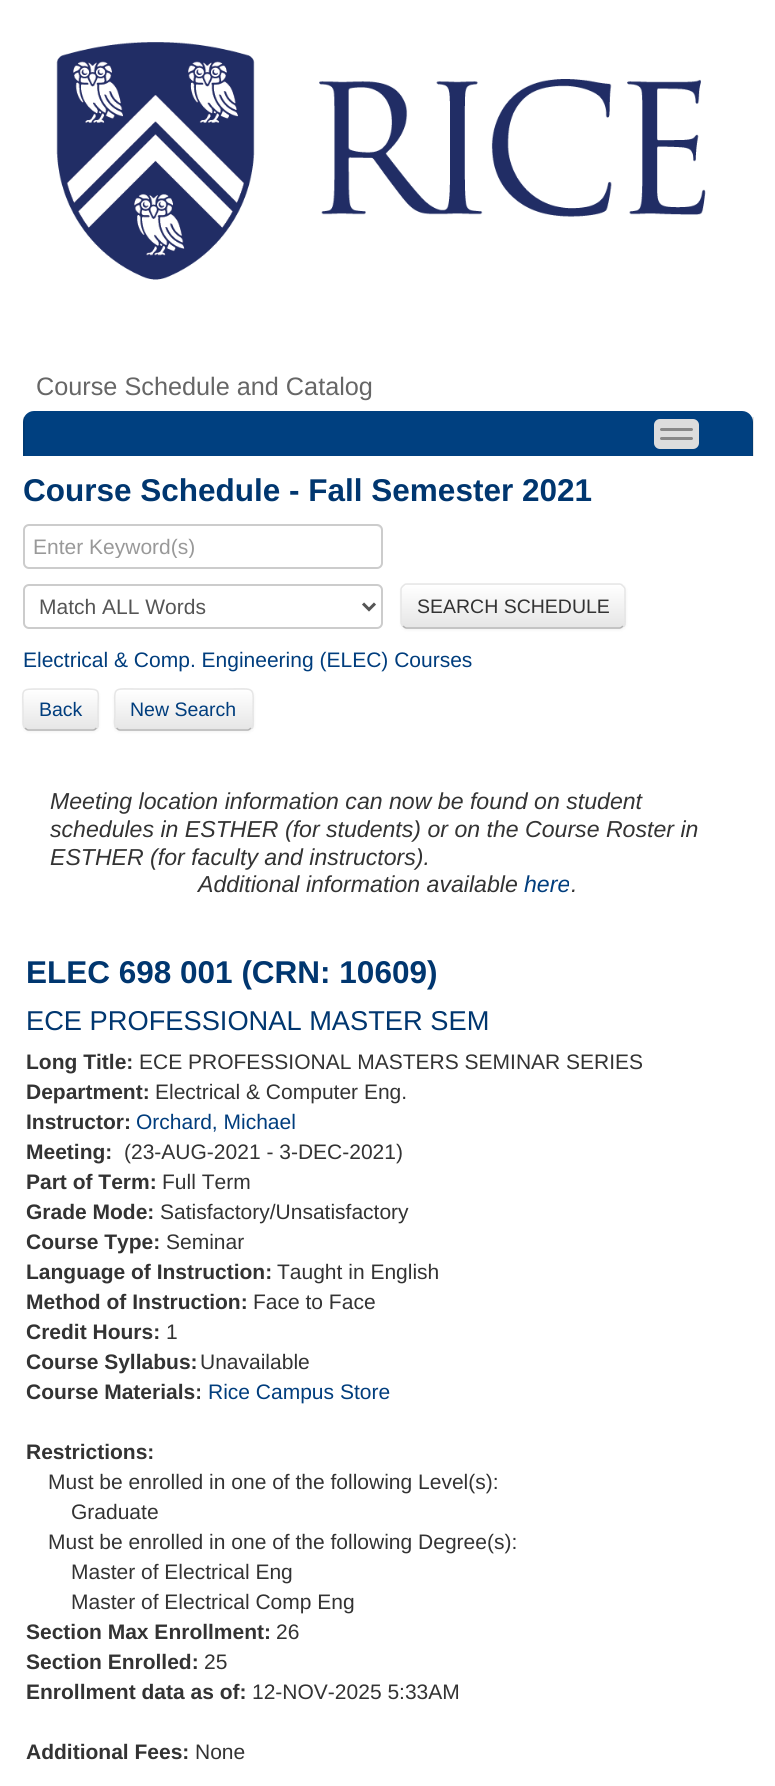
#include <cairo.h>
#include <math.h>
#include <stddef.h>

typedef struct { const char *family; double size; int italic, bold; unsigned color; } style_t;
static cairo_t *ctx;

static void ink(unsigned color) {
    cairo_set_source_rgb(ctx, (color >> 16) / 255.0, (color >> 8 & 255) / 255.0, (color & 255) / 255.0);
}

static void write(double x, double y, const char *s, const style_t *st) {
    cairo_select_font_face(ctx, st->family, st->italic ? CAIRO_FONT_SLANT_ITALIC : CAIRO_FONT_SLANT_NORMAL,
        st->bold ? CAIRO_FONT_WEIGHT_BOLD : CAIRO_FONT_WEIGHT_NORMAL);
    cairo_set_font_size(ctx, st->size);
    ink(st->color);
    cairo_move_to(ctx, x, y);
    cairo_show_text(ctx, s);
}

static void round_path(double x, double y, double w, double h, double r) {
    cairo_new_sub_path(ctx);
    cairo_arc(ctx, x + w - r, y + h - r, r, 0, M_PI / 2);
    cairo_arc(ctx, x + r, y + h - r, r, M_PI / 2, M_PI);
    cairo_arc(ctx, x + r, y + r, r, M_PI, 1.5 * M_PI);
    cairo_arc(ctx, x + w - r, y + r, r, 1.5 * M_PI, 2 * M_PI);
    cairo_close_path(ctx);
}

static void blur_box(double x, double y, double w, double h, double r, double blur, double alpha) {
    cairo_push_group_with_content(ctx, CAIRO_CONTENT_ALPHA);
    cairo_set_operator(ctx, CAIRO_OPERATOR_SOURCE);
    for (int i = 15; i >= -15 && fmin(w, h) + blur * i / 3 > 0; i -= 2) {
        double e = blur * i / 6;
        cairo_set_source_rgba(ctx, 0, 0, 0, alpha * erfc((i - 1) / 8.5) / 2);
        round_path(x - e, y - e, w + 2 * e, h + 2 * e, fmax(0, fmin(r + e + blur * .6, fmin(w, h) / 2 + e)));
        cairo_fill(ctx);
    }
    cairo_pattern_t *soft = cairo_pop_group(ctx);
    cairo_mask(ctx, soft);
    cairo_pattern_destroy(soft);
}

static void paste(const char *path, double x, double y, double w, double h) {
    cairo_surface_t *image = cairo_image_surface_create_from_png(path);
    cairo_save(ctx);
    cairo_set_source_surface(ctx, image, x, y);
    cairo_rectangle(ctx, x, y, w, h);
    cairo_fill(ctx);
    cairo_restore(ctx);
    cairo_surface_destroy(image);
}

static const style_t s1 = {"Liberation Sans", 25.25, 0, 0, 0x666666};
static const style_t s2 = {"Liberation Sans", 31.5, 0, 1, 0x00366f};
static const style_t s3 = {"Liberation Sans", 21, 0, 0, 0x999999};
static const style_t s4 = {"Liberation Sans", 21, 0, 0, 0x555555};
static const style_t s5 = {"Liberation Sans", 19.5, 0, 0, 0x333333};
static const style_t s6 = {"Liberation Sans", 21, 0, 0, 0x003d7d};
static const style_t s7 = {"Liberation Sans", 19.5, 0, 0, 0x003d7d};
static const style_t s8 = {"Liberation Sans", 23.1, 1, 0, 0x333333};
static const style_t s9 = {"Liberation Sans", 23.1, 1, 0, 0x003d7d};
static const style_t s10 = {"Liberation Sans", 27.25, 0, 0, 0x00366f};
static const style_t s11 = {"Liberation Sans", 21, 0, 1, 0x333333};
static const style_t s12 = {"Liberation Sans", 21, 0, 0, 0x333333};

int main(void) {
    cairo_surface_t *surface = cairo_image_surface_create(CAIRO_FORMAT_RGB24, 775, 1786);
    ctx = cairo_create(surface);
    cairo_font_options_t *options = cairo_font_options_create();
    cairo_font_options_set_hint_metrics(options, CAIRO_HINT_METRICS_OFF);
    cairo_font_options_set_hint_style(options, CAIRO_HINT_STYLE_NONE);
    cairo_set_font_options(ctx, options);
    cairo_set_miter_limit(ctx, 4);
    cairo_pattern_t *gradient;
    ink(0xffffff);
    cairo_paint(ctx);
    paste("pic1.png", 56, 42, 650, 238);
    write(36, 395, "Course Schedule and Catalog", &s1);
    ink(0x004080);
    cairo_new_path(ctx);
    cairo_move_to(ctx, 34, 411);
    cairo_line_to(ctx, 742, 411);
    cairo_curve_to(ctx, 748, 411, 753, 416, 753, 422);
    cairo_line_to(ctx, 753, 456);
    cairo_line_to(ctx, 23, 456);
    cairo_line_to(ctx, 23, 422);
    cairo_curve_to(ctx, 23, 416, 28, 411, 34, 411);
    cairo_close_path(ctx);
    cairo_fill(ctx);
    cairo_set_source_rgba(ctx, 0, 0, 0, 0.1);
    cairo_rectangle(ctx, 752, 417, 2, 39);
    cairo_fill(ctx);
    cairo_rectangle(ctx, 23, 417, 2, 39);
    cairo_fill(ctx);
    ink(0xdddddd);
    round_path(655, 420, 43, 28, 5);
    cairo_fill_preserve(ctx);
    cairo_stroke(ctx);
    ink(0x888888);
    round_path(660, 428, 33, 3, 1.5);
    cairo_fill(ctx);
    round_path(660, 437, 33, 3, 1.5);
    cairo_fill(ctx);
    write(23, 501, "Course Schedule - Fall Semester 2021", &s2);
    ink(0xececec);
    cairo_new_path(ctx);
    cairo_move_to(ctx, 28, 526);
    cairo_line_to(ctx, 376, 526);
    cairo_curve_to(ctx, 379, 526, 381, 529, 381, 531);
    cairo_curve_to(ctx, 381, 528, 379, 525, 376, 525);
    cairo_line_to(ctx, 29, 525);
    cairo_curve_to(ctx, 26, 525, 24, 528, 24, 531);
    cairo_curve_to(ctx, 24, 529, 26, 526, 28, 526);
    cairo_close_path(ctx);
    cairo_fill(ctx);
    round_path(24, 525, 358, 43, 5);
    ink(0xcccccc);
    cairo_stroke(ctx);
    cairo_save(ctx);
    cairo_rectangle(ctx, 33, 534, 339, 24);
    cairo_clip(ctx);
    write(33, 554, "Enter Keyword(s)", &s3);
    cairo_restore(ctx);
    round_path(24, 585, 358, 43, 5);
    cairo_stroke(ctx);
    cairo_new_path(ctx);
    cairo_move_to(ctx, 363, 603.5);
    cairo_line_to(ctx, 369, 609.5);
    cairo_line_to(ctx, 375, 603.5);
    ink(0x555555);
    cairo_set_line_width(ctx, 3);
    cairo_stroke(ctx);
    write(39, 614, "Match ALL Words", &s4);
    ink(0x000000);
    blur_box(401, 585, 225, 45, 6, 1.5, 0.05);
    ink(0xf5f5f5);
    round_path(401, 584, 225, 45, 6);
    cairo_fill(ctx);
    cairo_save(ctx);
    round_path(401, 584, 225, 45, 6);
    cairo_clip(ctx);
    gradient = cairo_pattern_create_linear(513, 585, 513, 627);
    cairo_pattern_add_color_stop_rgba(gradient, 0, 1, 1, 1, 1);
    cairo_pattern_add_color_stop_rgba(gradient, 1, 0.902, 0.902, 0.902, 1);
    cairo_set_source(ctx, gradient);
    cairo_pattern_destroy(gradient);
    cairo_rectangle(ctx, 401, 585, 225, 42);
    cairo_fill(ctx);
    cairo_restore(ctx);
    cairo_new_path(ctx);
    cairo_move_to(ctx, 623, 626);
    cairo_curve_to(ctx, 622, 627, 621, 628, 619.5, 628);
    cairo_line_to(ctx, 406.5, 628);
    cairo_curve_to(ctx, 405, 628, 404, 627, 403, 626);
    ink(0xb3b3b3);
    cairo_set_line_width(ctx, 1.5);
    cairo_stroke(ctx);
    cairo_new_path(ctx);
    cairo_move_to(ctx, 403, 626);
    cairo_curve_to(ctx, 402, 625, 401, 624, 401, 622.5);
    cairo_line_to(ctx, 401, 589.5);
    cairo_curve_to(ctx, 401, 588, 402, 587, 403, 586);
    cairo_curve_to(ctx, 404, 585, 405, 584, 406.5, 584);
    cairo_line_to(ctx, 619.5, 584);
    cairo_curve_to(ctx, 621, 584, 622, 585, 623, 586);
    cairo_curve_to(ctx, 624, 587, 625, 588, 625, 589.5);
    cairo_line_to(ctx, 625, 622.5);
    cairo_curve_to(ctx, 625, 624, 624, 625, 623, 626);
    ink(0xe6e6e6);
    cairo_stroke(ctx);
    write(417, 613, "SEARCH SCHEDULE", &s5);
    write(23, 667, "Electrical & Comp. Engineering (ELEC) Courses", &s6);
    ink(0x000000);
    blur_box(23, 690, 76, 42, 6, 1.5, 0.05);
    ink(0xf5f5f5);
    round_path(23, 689, 76, 42, 6);
    cairo_fill(ctx);
    cairo_save(ctx);
    round_path(23, 689, 76, 42, 6);
    cairo_clip(ctx);
    gradient = cairo_pattern_create_linear(61, 690, 61, 729);
    cairo_pattern_add_color_stop_rgba(gradient, 0, 1, 1, 1, 1);
    cairo_pattern_add_color_stop_rgba(gradient, 1, 0.902, 0.902, 0.902, 1);
    cairo_set_source(ctx, gradient);
    cairo_pattern_destroy(gradient);
    cairo_rectangle(ctx, 23, 690, 76, 39);
    cairo_fill(ctx);
    cairo_restore(ctx);
    cairo_new_path(ctx);
    cairo_move_to(ctx, 96.5, 728);
    cairo_curve_to(ctx, 95.5, 729, 94.5, 730, 93, 730);
    cairo_line_to(ctx, 28.5, 730);
    cairo_curve_to(ctx, 27, 730, 26, 729, 25, 728);
    ink(0xb3b3b3);
    cairo_stroke(ctx);
    cairo_new_path(ctx);
    cairo_move_to(ctx, 25, 728);
    cairo_curve_to(ctx, 22.5, 726, 23, 722.5, 23, 719.5);
    cairo_line_to(ctx, 23, 709.5);
    cairo_curve_to(ctx, 23, 689, 19.5, 689, 39, 689);
    cairo_line_to(ctx, 82, 689);
    cairo_curve_to(ctx, 102, 689, 98, 689, 98, 709.5);
    cairo_line_to(ctx, 98, 719.5);
    cairo_curve_to(ctx, 98, 722.5, 99, 726, 96.5, 728);
    ink(0xe6e6e6);
    cairo_stroke(ctx);
    write(39, 716, "Back", &s7);
    ink(0x000000);
    blur_box(114, 690, 140, 42, 6, 1.5, 0.05);
    ink(0xf5f5f5);
    round_path(114, 689, 140, 42, 6);
    cairo_fill(ctx);
    cairo_save(ctx);
    round_path(114, 689, 140, 42, 6);
    cairo_clip(ctx);
    gradient = cairo_pattern_create_linear(184, 690, 184, 729);
    cairo_pattern_add_color_stop_rgba(gradient, 0, 1, 1, 1, 1);
    cairo_pattern_add_color_stop_rgba(gradient, 1, 0.902, 0.902, 0.902, 1);
    cairo_set_source(ctx, gradient);
    cairo_pattern_destroy(gradient);
    cairo_rectangle(ctx, 114, 690, 140, 39);
    cairo_fill(ctx);
    cairo_restore(ctx);
    cairo_new_path(ctx);
    cairo_move_to(ctx, 251, 728);
    cairo_curve_to(ctx, 250, 729, 249, 730, 247.5, 730);
    cairo_line_to(ctx, 120, 730);
    cairo_curve_to(ctx, 118.5, 730, 117.5, 729, 116.5, 728);
    ink(0xb3b3b3);
    cairo_stroke(ctx);
    cairo_new_path(ctx);
    cairo_move_to(ctx, 116.5, 728);
    cairo_curve_to(ctx, 113, 725, 115, 718, 115, 714.5);
    cairo_curve_to(ctx, 115, 685, 110, 689, 141, 689);
    cairo_line_to(ctx, 226, 689);
    cairo_curve_to(ctx, 257.5, 689, 253, 685, 253, 714.5);
    cairo_curve_to(ctx, 253, 718, 254.5, 725, 251, 728);
    ink(0xe6e6e6);
    cairo_stroke(ctx);
    write(130, 716, "New Search", &s7);
    write(50, 809, "Meeting location information can now be found on student", &s8);
    write(50, 837, "schedules in ESTHER (for students) or on the Course Roster in", &s8);
    write(50, 865, "ESTHER (for faculty and instructors).", &s8);
    write(198, 892, "Additional information available", &s8);
    write(524, 892, "here", &s9);
    write(571, 892, ".", &s8);
    write(26, 983, "ELEC 698 001 (CRN: 10609)", &s2);
    write(26, 1030, "ECE PROFESSIONAL MASTER SEM", &s10);
    write(26, 1069, "Long Title:", &s11);
    write(139, 1069, "ECE PROFESSIONAL MASTERS SEMINAR SERIES", &s12);
    write(26, 1099, "Department:", &s11);
    write(155, 1099, "Electrical & Computer Eng.", &s12);
    write(26, 1129, "Instructor:", &s11);
    write(136, 1129, "Orchard, Michael", &s6);
    write(26, 1159, "Meeting:", &s11);
    write(124, 1159, "(23-AUG-2021 - 3-DEC-2021)", &s12);
    write(26, 1189, "Part of Term:", &s11);
    write(162, 1189, "Full Term", &s12);
    write(26, 1219, "Grade Mode:", &s11);
    write(160, 1219, "Satisfactory/Unsatisfactory", &s12);
    write(26, 1249, "Course Type:", &s11);
    write(166, 1249, "Seminar", &s12);
    write(26, 1279, "Language of Instruction:", &s11);
    write(277, 1279, "Taught in English", &s12);
    write(26, 1309, "Method of Instruction:", &s11);
    write(253, 1309, "Face to Face", &s12);
    write(26, 1339, "Credit Hours:", &s11);
    write(166, 1339, "1", &s12);
    write(26, 1369, "Course Syllabus:", &s11);
    write(200, 1369, "Unavailable", &s12);
    write(26, 1399, "Course Materials:", &s11);
    write(208, 1399, "Rice Campus Store", &s6);
    write(26, 1459, "Restrictions:", &s11);
    write(48, 1489, "Must be enrolled in one of the following Level(s):", &s12);
    write(71, 1519, "Graduate", &s12);
    write(48, 1549, "Must be enrolled in one of the following Degree(s):", &s12);
    write(71, 1579, "Master of Electrical Eng", &s12);
    write(71, 1609, "Master of Electrical Comp Eng", &s12);
    write(26, 1639, "Section Max Enrollment:", &s11);
    write(276, 1639, "26", &s12);
    write(26, 1669, "Section Enrolled:", &s11);
    write(204, 1669, "25", &s12);
    write(26, 1699, "Enrollment data as of:", &s11);
    write(252, 1699, "12-NOV-2025 5:33AM", &s12);
    write(26, 1759, "Additional Fees:", &s11);
    write(195, 1759, "None", &s12);
    cairo_surface_write_to_png(surface, "screenshot.png");
    cairo_font_options_destroy(options);
    cairo_destroy(ctx);
    cairo_surface_destroy(surface);
    return 0;
}
